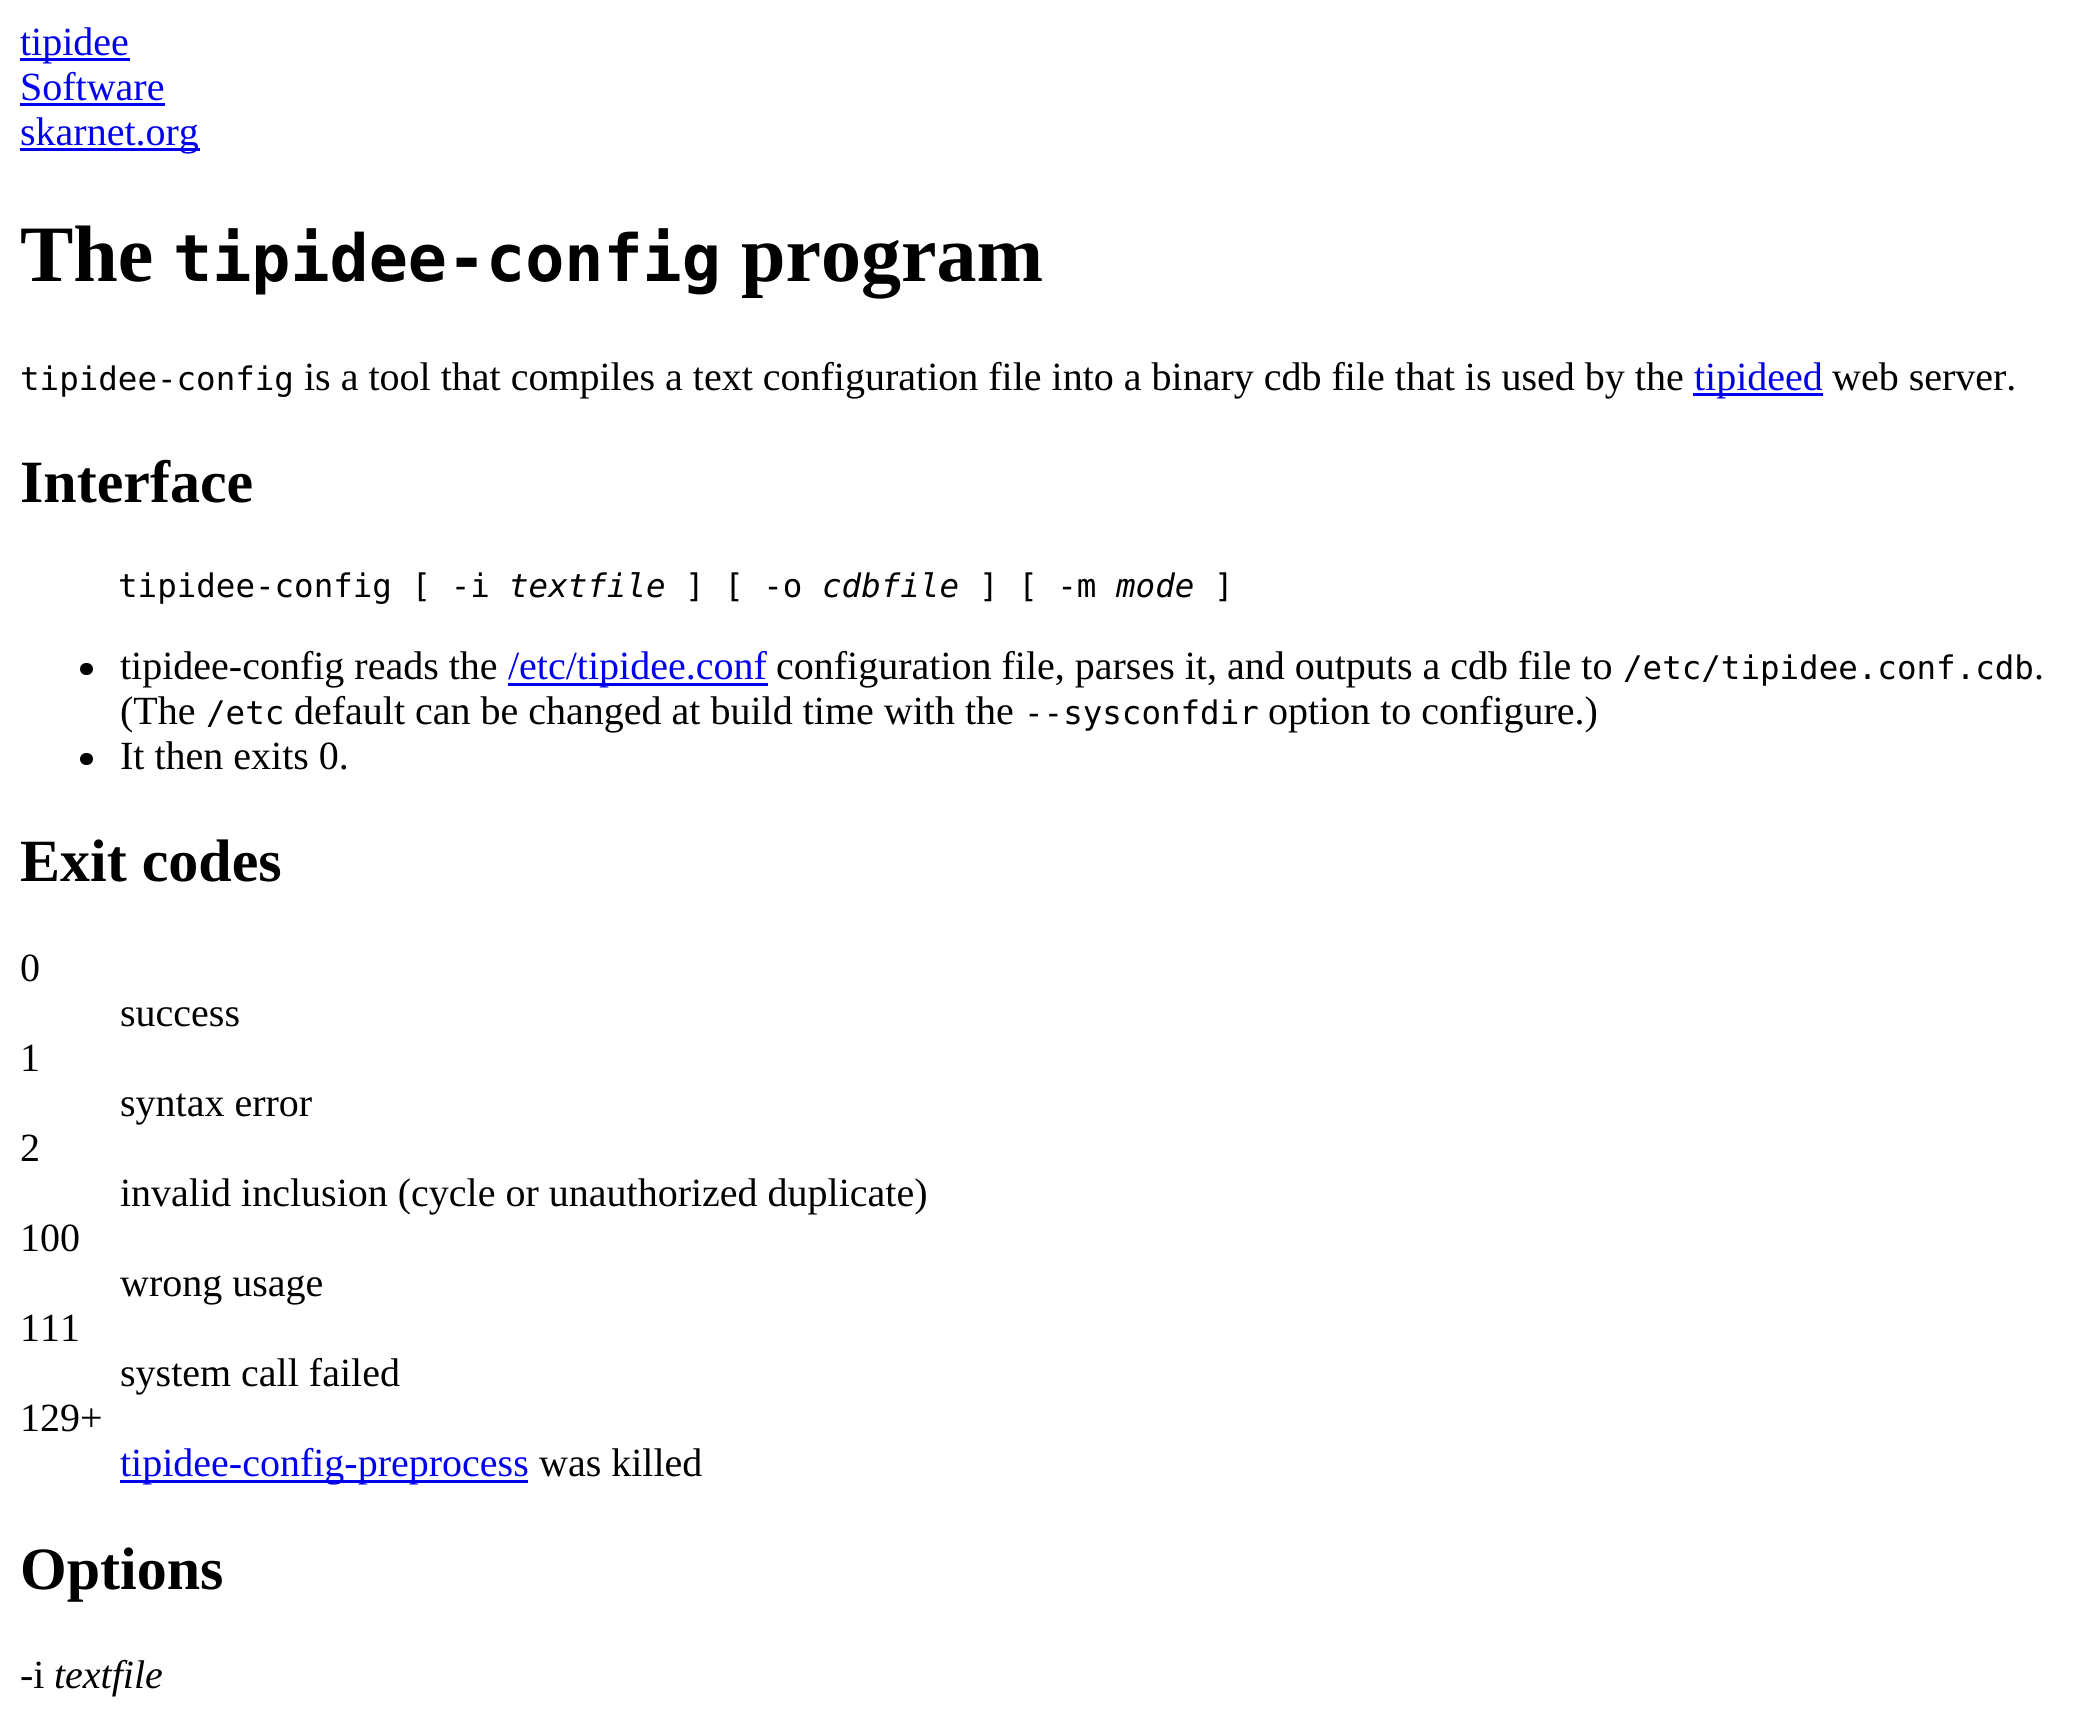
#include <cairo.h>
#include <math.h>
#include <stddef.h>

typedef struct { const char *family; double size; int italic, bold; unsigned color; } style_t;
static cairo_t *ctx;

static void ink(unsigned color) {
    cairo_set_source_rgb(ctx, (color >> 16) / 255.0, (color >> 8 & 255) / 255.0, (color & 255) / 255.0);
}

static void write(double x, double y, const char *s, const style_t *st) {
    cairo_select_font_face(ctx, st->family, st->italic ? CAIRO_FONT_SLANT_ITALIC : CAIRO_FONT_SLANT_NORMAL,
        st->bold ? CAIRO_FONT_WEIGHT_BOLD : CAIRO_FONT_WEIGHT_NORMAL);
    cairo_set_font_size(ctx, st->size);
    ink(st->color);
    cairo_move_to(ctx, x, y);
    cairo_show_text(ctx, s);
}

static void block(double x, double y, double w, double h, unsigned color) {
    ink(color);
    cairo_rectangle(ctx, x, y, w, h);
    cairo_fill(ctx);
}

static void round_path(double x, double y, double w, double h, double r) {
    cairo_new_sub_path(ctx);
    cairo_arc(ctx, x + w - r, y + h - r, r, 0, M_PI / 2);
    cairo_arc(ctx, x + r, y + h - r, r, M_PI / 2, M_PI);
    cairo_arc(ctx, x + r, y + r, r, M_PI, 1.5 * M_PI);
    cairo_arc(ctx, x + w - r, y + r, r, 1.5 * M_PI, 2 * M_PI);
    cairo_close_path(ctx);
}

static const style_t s1 = {"Liberation Serif", 40, 0, 0, 0x0000ee};
static const style_t s2 = {"Liberation Serif", 80, 0, 1, 0x000000};
static const style_t s3 = {"DejaVu Sans Mono", 65, 0, 1, 0x000000};
static const style_t s4 = {"DejaVu Sans Mono", 32.5, 0, 0, 0x000000};
static const style_t s5 = {"Liberation Serif", 40, 0, 0, 0x000000};
static const style_t s6 = {"Liberation Serif", 60, 0, 1, 0x000000};
static const style_t s7 = {"DejaVu Sans Mono", 32.5, 1, 0, 0x000000};
static const style_t s8 = {"Liberation Serif", 40, 1, 0, 0x000000};

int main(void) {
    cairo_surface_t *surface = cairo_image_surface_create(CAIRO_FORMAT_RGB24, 2089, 1721);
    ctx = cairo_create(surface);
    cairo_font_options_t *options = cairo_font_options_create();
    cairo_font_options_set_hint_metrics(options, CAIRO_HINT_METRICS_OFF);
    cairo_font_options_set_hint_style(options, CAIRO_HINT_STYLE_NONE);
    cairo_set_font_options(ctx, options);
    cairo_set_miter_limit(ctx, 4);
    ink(0xffffff);
    cairo_paint(ctx);
    block(20, 58, 110, 3, 0x0000ee);
    write(20, 55, "tipidee", &s1);
    write(20, 100, "Software", &s1);
    block(20, 103, 145, 3, 0x0000ee);
    block(20, 148, 180, 3, 0x0000ee);
    write(20, 145, "skarnet.org", &s1);
    write(20, 281, "The", &s2);
    write(173, 281, "tipidee-config", &s3);
    write(741, 281, "program", &s2);
    write(20, 390, "tipidee-config", &s4);
    write(304, 390, "is a tool that compiles a text configuration file into a binary cdb file that is used by the", &s5);
    block(1693, 393, 130, 3, 0x0000ee);
    write(1694, 390, "tipideed", &s1);
    write(1832, 390, "web server.", &s5);
    write(20, 502, "Interface", &s6);
    write(118, 597, "tipidee-config [ -i", &s4);
    write(509, 597, "textfile", &s7);
    write(685, 597, "] [ -o", &s4);
    write(822, 597, "cdbfile", &s7);
    write(979, 597, "] [ -m", &s4);
    write(1116, 597, "mode", &s7);
    write(1214, 597, "]", &s4);
    round_path(80, 663, 13, 12, 6);
    cairo_fill(ctx);
    write(120, 679, "tipidee-config reads the", &s5);
    block(508, 683, 260, 3, 0x0000ee);
    write(508, 679, "/etc/tipidee.conf", &s1);
    write(776, 679, "configuration file, parses it, and outputs a cdb file to", &s5);
    write(1623, 679, "/etc/tipidee.conf.cdb", &s4);
    write(2034, 679, ".", &s5);
    write(120, 724, "(The", &s5);
    write(206, 724, "/etc", &s4);
    write(294, 724, "default can be changed at build time with the", &s5);
    write(1024, 724, "--sysconfdir", &s4);
    write(1268, 724, "option to configure.)", &s5);
    round_path(80, 753, 13, 12, 6);
    cairo_fill(ctx);
    write(120, 769, "It then exits 0.", &s5);
    write(20, 881, "Exit codes", &s6);
    write(20, 981, "0", &s5);
    write(120, 1026, "success", &s5);
    write(20, 1071, "1", &s5);
    write(120, 1116, "syntax error", &s5);
    write(20, 1161, "2", &s5);
    write(120, 1206, "invalid inclusion (cycle or unauthorized duplicate)", &s5);
    write(20, 1251, "100", &s5);
    write(120, 1296, "wrong usage", &s5);
    write(20, 1341, "111", &s5);
    write(120, 1386, "system call failed", &s5);
    write(20, 1431, "129+", &s5);
    block(120, 1480, 408, 3, 0x0000ee);
    write(120, 1476, "tipidee-config-preprocess", &s1);
    write(539, 1476, "was killed", &s5);
    write(20, 1589, "Options", &s6);
    write(20, 1688, "-i", &s5);
    write(54, 1688, "textfile", &s8);
    cairo_surface_write_to_png(surface, "screenshot.png");
    cairo_font_options_destroy(options);
    cairo_destroy(ctx);
    cairo_surface_destroy(surface);
    return 0;
}
